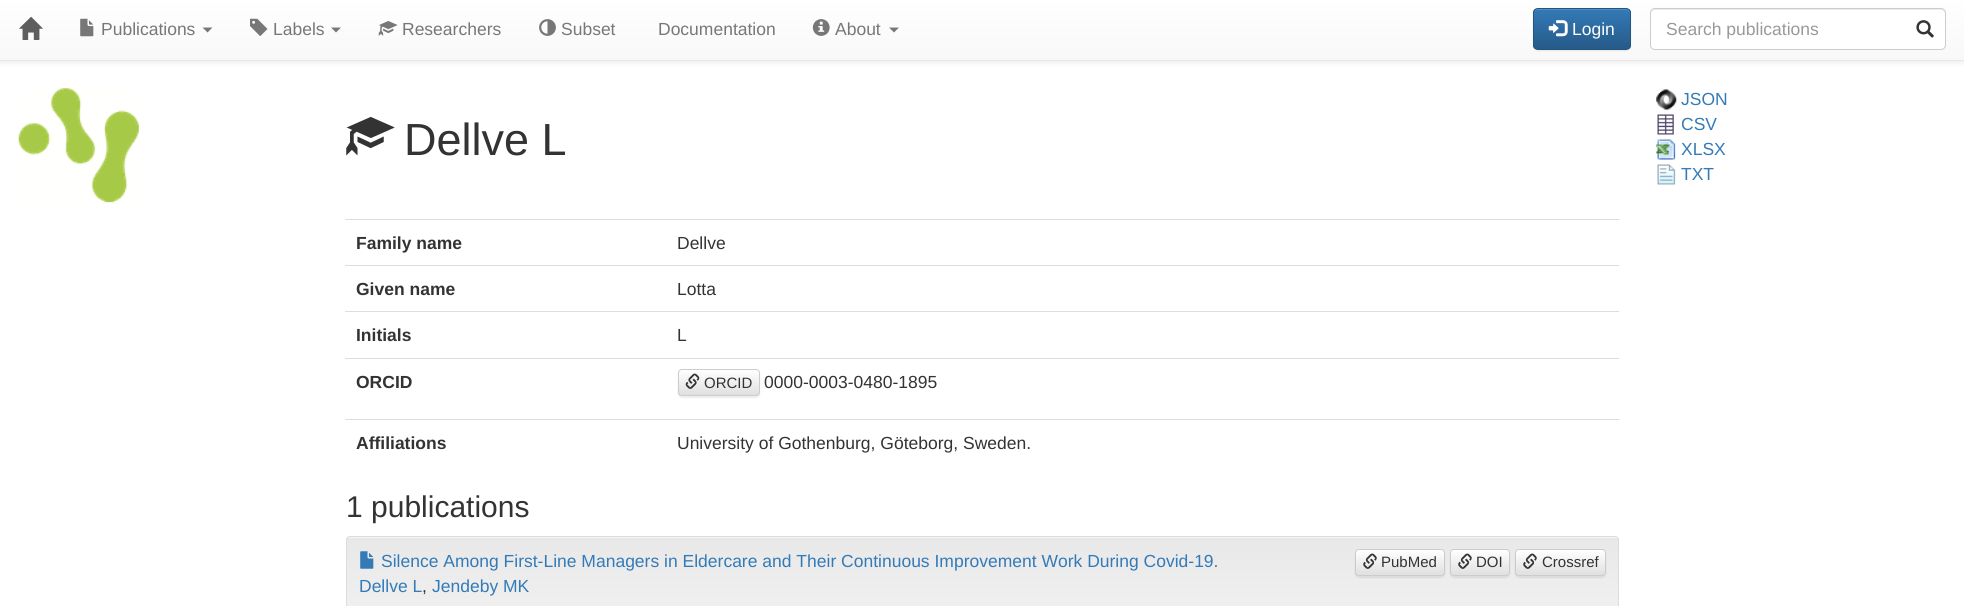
#include <cairo.h>
#include <math.h>
#include <stddef.h>

typedef struct { const char *family; double size; int italic, bold; unsigned color; } style_t;
static cairo_t *ctx;

static void ink(unsigned color) {
    cairo_set_source_rgb(ctx, (color >> 16) / 255.0, (color >> 8 & 255) / 255.0, (color & 255) / 255.0);
}

static void write(double x, double y, const char *s, const style_t *st) {
    cairo_select_font_face(ctx, st->family, st->italic ? CAIRO_FONT_SLANT_ITALIC : CAIRO_FONT_SLANT_NORMAL,
        st->bold ? CAIRO_FONT_WEIGHT_BOLD : CAIRO_FONT_WEIGHT_NORMAL);
    cairo_set_font_size(ctx, st->size);
    ink(st->color);
    cairo_move_to(ctx, x, y);
    cairo_show_text(ctx, s);
}

static void block(double x, double y, double w, double h, unsigned color) {
    ink(color);
    cairo_rectangle(ctx, x, y, w, h);
    cairo_fill(ctx);
}

static void round_path(double x, double y, double w, double h, double r) {
    cairo_new_sub_path(ctx);
    cairo_arc(ctx, x + w - r, y + h - r, r, 0, M_PI / 2);
    cairo_arc(ctx, x + r, y + h - r, r, M_PI / 2, M_PI);
    cairo_arc(ctx, x + r, y + r, r, M_PI, 1.5 * M_PI);
    cairo_arc(ctx, x + w - r, y + r, r, 1.5 * M_PI, 2 * M_PI);
    cairo_close_path(ctx);
}

static void blur_box(double x, double y, double w, double h, double r, double blur, double alpha) {
    cairo_push_group_with_content(ctx, CAIRO_CONTENT_ALPHA);
    cairo_set_operator(ctx, CAIRO_OPERATOR_SOURCE);
    for (int i = 15; i >= -15 && fmin(w, h) + blur * i / 3 > 0; i -= 2) {
        double e = blur * i / 6;
        cairo_set_source_rgba(ctx, 0, 0, 0, alpha * erfc((i - 1) / 8.5) / 2);
        round_path(x - e, y - e, w + 2 * e, h + 2 * e, fmax(0, fmin(r + e + blur * .6, fmin(w, h) / 2 + e)));
        cairo_fill(ctx);
    }
    cairo_pattern_t *soft = cairo_pop_group(ctx);
    cairo_mask(ctx, soft);
    cairo_pattern_destroy(soft);
}

static void paste(const char *path, double x, double y, double w, double h) {
    cairo_surface_t *image = cairo_image_surface_create_from_png(path);
    cairo_save(ctx);
    cairo_set_source_surface(ctx, image, x, y);
    cairo_rectangle(ctx, x, y, w, h);
    cairo_fill(ctx);
    cairo_restore(ctx);
    cairo_surface_destroy(image);
}

static const style_t s1 = {"Liberation Sans", 17.5, 0, 0, 0x777777};
static const style_t s2 = {"Liberation Sans", 17.5, 0, 0, 0xffffff};
static const style_t s3 = {"Liberation Sans", 17.5, 0, 0, 0x999999};
static const style_t s4 = {"Liberation Sans", 45, 0, 0, 0x333333};
static const style_t s5 = {"Liberation Sans", 17.5, 0, 0, 0x337ab7};
static const style_t s6 = {"Liberation Sans", 17.5, 0, 1, 0x333333};
static const style_t s7 = {"Liberation Sans", 17.5, 0, 0, 0x333333};
static const style_t s8 = {"Liberation Sans", 15, 0, 0, 0x333333};
static const style_t s9 = {"Liberation Sans", 30, 0, 0, 0x333333};

int main(void) {
    cairo_surface_t *surface = cairo_image_surface_create(CAIRO_FORMAT_RGB24, 1964, 606);
    ctx = cairo_create(surface);
    cairo_font_options_t *options = cairo_font_options_create();
    cairo_font_options_set_hint_metrics(options, CAIRO_HINT_METRICS_OFF);
    cairo_font_options_set_hint_style(options, CAIRO_HINT_STYLE_NONE);
    cairo_set_font_options(ctx, options);
    cairo_set_miter_limit(ctx, 4);
    cairo_pattern_t *gradient;
    ink(0xffffff);
    cairo_paint(ctx);
    ink(0x000000);
    blur_box(0, -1, 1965, 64, 0, 3, 0.07);
    gradient = cairo_pattern_create_linear(983, -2.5, 983, 60);
    cairo_pattern_add_color_stop_rgba(gradient, 0, 1, 1, 1, 1);
    cairo_pattern_add_color_stop_rgba(gradient, 1, 0.973, 0.973, 0.973, 1);
    cairo_set_source(ctx, gradient);
    cairo_pattern_destroy(gradient);
    cairo_rectangle(ctx, 0, 0, 1964, 60);
    cairo_fill(ctx);
    block(0, 60, 1964, 1, 0xe7e7e7);
    paste("pic1.png", 19, 16, 24, 24);
    paste("pic2.png", 80, 18, 14, 19);
    write(101, 35, "Publications", &s1);
    cairo_new_path(ctx);
    cairo_move_to(ctx, 202.5, 27.5);
    cairo_line_to(ctx, 212.5, 27.5);
    cairo_line_to(ctx, 207.5, 32.5);
    cairo_close_path(ctx);
    cairo_fill(ctx);
    paste("pic3.png", 250, 18, 18, 18);
    write(273, 35, "Labels", &s1);
    cairo_new_path(ctx);
    cairo_move_to(ctx, 331, 27.5);
    cairo_line_to(ctx, 341, 27.5);
    cairo_line_to(ctx, 336, 32.5);
    cairo_close_path(ctx);
    cairo_fill(ctx);
    paste("pic4.png", 378, 21, 20, 15);
    write(402, 35, "Researchers", &s1);
    paste("pic5.png", 539, 19, 17, 17);
    write(561, 35, "Subset", &s1);
    write(658, 35, "Documentation", &s1);
    paste("pic6.png", 812, 19, 18, 17);
    write(835, 35, "About", &s1);
    cairo_new_path(ctx);
    cairo_move_to(ctx, 889, 27.5);
    cairo_line_to(ctx, 899, 27.5);
    cairo_line_to(ctx, 894, 32.5);
    cairo_close_path(ctx);
    cairo_fill(ctx);
    ink(0x000000);
    blur_box(1533, 9, 98, 42, 5, 0.5, 0.07);
    cairo_save(ctx);
    round_path(1533, 8, 98, 42, 5);
    cairo_clip(ctx);
    gradient = cairo_pattern_create_linear(1582, 9, 1582, 49);
    cairo_pattern_add_color_stop_rgba(gradient, 0, 0.2, 0.478, 0.718, 1);
    cairo_pattern_add_color_stop_rgba(gradient, 1, 0.149, 0.353, 0.533, 1);
    cairo_set_source(ctx, gradient);
    cairo_pattern_destroy(gradient);
    cairo_rectangle(ctx, 1533, 9, 98, 40);
    cairo_fill(ctx);
    cairo_restore(ctx);
    ink(0x528ec1);
    cairo_new_path(ctx);
    cairo_move_to(ctx, 1538, 10);
    cairo_line_to(ctx, 1626, 10);
    cairo_curve_to(ctx, 1628, 10, 1630, 12, 1630, 14);
    cairo_curve_to(ctx, 1630, 5, 1616, 9, 1611, 9);
    cairo_line_to(ctx, 1553, 9);
    cairo_curve_to(ctx, 1548, 9, 1534, 5, 1534, 14);
    cairo_curve_to(ctx, 1534, 12, 1535, 10, 1538, 10);
    cairo_close_path(ctx);
    cairo_fill(ctx);
    round_path(1533.5, 8.5, 97, 41, 4.5);
    ink(0x245580);
    cairo_set_line_width(ctx, 1);
    cairo_stroke(ctx);
    paste("pic7.png", 1548, 20, 20, 17);
    write(1572, 35, "Login", &s2);
    round_path(1650, 8, 296, 42, 5);
    cairo_fill(ctx);
    ink(0xececec);
    cairo_new_path(ctx);
    cairo_move_to(ctx, 1655, 10);
    cairo_line_to(ctx, 1941, 10);
    cairo_curve_to(ctx, 1943, 10, 1945, 12, 1945, 14);
    cairo_curve_to(ctx, 1945, 11, 1944, 9, 1941, 9);
    cairo_line_to(ctx, 1655, 9);
    cairo_curve_to(ctx, 1652, 9, 1651, 11, 1651, 14);
    cairo_curve_to(ctx, 1651, 12, 1653, 10, 1655, 10);
    cairo_close_path(ctx);
    cairo_fill(ctx);
    round_path(1650.5, 8.5, 295, 41, 4.5);
    ink(0xcccccc);
    cairo_stroke(ctx);
    write(1666, 35, "Search publications", &s3);
    paste("pic8.png", 1916, 20, 18, 18);
    paste("pic9.png", 18, 88, 121, 115);
    paste("pic10.png", 346, 116, 49, 40);
    write(404, 155, "Dellve L", &s4);
    paste("pic11.png", 1656, 89, 21, 21);
    write(1681, 105, "JSON", &s5);
    paste("pic12.png", 1657, 114, 17, 21);
    write(1681, 130, "CSV", &s5);
    paste("pic13.png", 1656, 139, 20, 21);
    write(1681, 155, "XLSX", &s5);
    paste("pic14.png", 1657, 164, 19, 21);
    write(1681, 180, "TXT", &s5);
    write(356, 249, "Family name", &s6);
    block(345, 219, 1274, 1, 0xdddddd);
    write(677, 249, "Dellve", &s7);
    write(356, 295, "Given name", &s6);
    block(345, 265, 1274, 1, 0xdddddd);
    write(677, 295, "Lotta", &s7);
    write(356, 341, "Initials", &s6);
    block(345, 311, 1274, 1, 0xdddddd);
    write(677, 341, "L", &s7);
    write(356, 388, "ORCID", &s6);
    block(345, 358, 1274, 1, 0xdddddd);
    ink(0x000000);
    blur_box(678, 370, 82, 28, 4, 0.5, 0.07);
    cairo_save(ctx);
    round_path(678, 369, 82, 27, 4);
    cairo_clip(ctx);
    gradient = cairo_pattern_create_linear(719, 370, 719, 395);
    cairo_pattern_add_color_stop_rgba(gradient, 0, 1, 1, 1, 1);
    cairo_pattern_add_color_stop_rgba(gradient, 1, 0.878, 0.878, 0.878, 1);
    cairo_set_source(ctx, gradient);
    cairo_pattern_destroy(gradient);
    cairo_rectangle(ctx, 678, 370, 82, 25);
    cairo_fill(ctx);
    cairo_restore(ctx);
    round_path(678.5, 369.5, 81, 26, 3.5);
    ink(0xcccccc);
    cairo_stroke(ctx);
    paste("pic15.png", 685, 373, 15, 16);
    write(704, 388, "ORCID", &s8);
    write(764, 388, "0000-0003-0480-1895", &s7);
    write(356, 449, "Affiliations", &s6);
    block(345, 419, 1274, 1, 0xdddddd);
    write(677, 449, "University of Gothenburg, Göteborg, Sweden.", &s7);
    write(346, 517, "1 publications", &s9);
    ink(0xf5f5f5);
    round_path(346, 536, 1273, 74, 4);
    cairo_fill(ctx);
    gradient = cairo_pattern_create_linear(983, 537, 983, 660);
    cairo_pattern_add_color_stop_rgba(gradient, 0, 0.91, 0.91, 0.91, 1);
    cairo_pattern_add_color_stop_rgba(gradient, 1, 0.961, 0.961, 0.961, 1);
    cairo_set_source(ctx, gradient);
    cairo_pattern_destroy(gradient);
    cairo_rectangle(ctx, 346, 538, 1273, 68);
    cairo_fill(ctx);
    round_path(346.5, 536.5, 1272, 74, 3.5);
    ink(0xdcdcdc);
    cairo_stroke(ctx);
    paste("pic16.png", 360, 551, 14, 18);
    write(381, 567, "Silence Among First-Line Managers in Eldercare and Their Continuous Improvement Work During Covid-19.", &s5);
    ink(0x000000);
    blur_box(1355, 550, 90, 28, 4, 0.5, 0.07);
    cairo_save(ctx);
    round_path(1355, 549, 90, 27, 4);
    cairo_clip(ctx);
    gradient = cairo_pattern_create_linear(1400, 550, 1400, 575);
    cairo_pattern_add_color_stop_rgba(gradient, 0, 1, 1, 1, 1);
    cairo_pattern_add_color_stop_rgba(gradient, 1, 0.878, 0.878, 0.878, 1);
    cairo_set_source(ctx, gradient);
    cairo_pattern_destroy(gradient);
    cairo_rectangle(ctx, 1355, 550, 90, 25);
    cairo_fill(ctx);
    cairo_restore(ctx);
    round_path(1355.5, 549.5, 89, 26, 3.5);
    ink(0xcccccc);
    cairo_stroke(ctx);
    paste("pic17.png", 1363, 553, 14, 16);
    write(1381, 567, "PubMed", &s8);
    ink(0x000000);
    blur_box(1450, 550, 60, 28, 4, 0.5, 0.07);
    cairo_save(ctx);
    round_path(1450, 549, 60, 27, 4);
    cairo_clip(ctx);
    gradient = cairo_pattern_create_linear(1480, 550, 1480, 575);
    cairo_pattern_add_color_stop_rgba(gradient, 0, 1, 1, 1, 1);
    cairo_pattern_add_color_stop_rgba(gradient, 1, 0.878, 0.878, 0.878, 1);
    cairo_set_source(ctx, gradient);
    cairo_pattern_destroy(gradient);
    cairo_rectangle(ctx, 1450, 550, 60, 25);
    cairo_fill(ctx);
    cairo_restore(ctx);
    round_path(1450.5, 549.5, 59, 26, 3.5);
    ink(0xcccccc);
    cairo_stroke(ctx);
    paste("pic17.png", 1458, 553, 14, 16);
    write(1476, 567, "DOI", &s8);
    ink(0x000000);
    blur_box(1515, 550, 91, 28, 4, 0.5, 0.07);
    cairo_save(ctx);
    round_path(1515, 549, 91, 27, 4);
    cairo_clip(ctx);
    gradient = cairo_pattern_create_linear(1561, 550, 1561, 575);
    cairo_pattern_add_color_stop_rgba(gradient, 0, 1, 1, 1, 1);
    cairo_pattern_add_color_stop_rgba(gradient, 1, 0.878, 0.878, 0.878, 1);
    cairo_set_source(ctx, gradient);
    cairo_pattern_destroy(gradient);
    cairo_rectangle(ctx, 1515, 550, 91, 25);
    cairo_fill(ctx);
    cairo_restore(ctx);
    round_path(1515.5, 549.5, 90, 26, 3.5);
    ink(0xcccccc);
    cairo_stroke(ctx);
    paste("pic17.png", 1523, 553, 14, 16);
    write(1542, 567, "Crossref", &s8);
    write(359, 592, "Dellve L", &s5);
    write(422, 592, ",", &s7);
    write(432, 592, "Jendeby MK", &s5);
    cairo_surface_write_to_png(surface, "screenshot.png");
    cairo_font_options_destroy(options);
    cairo_destroy(ctx);
    cairo_surface_destroy(surface);
    return 0;
}
